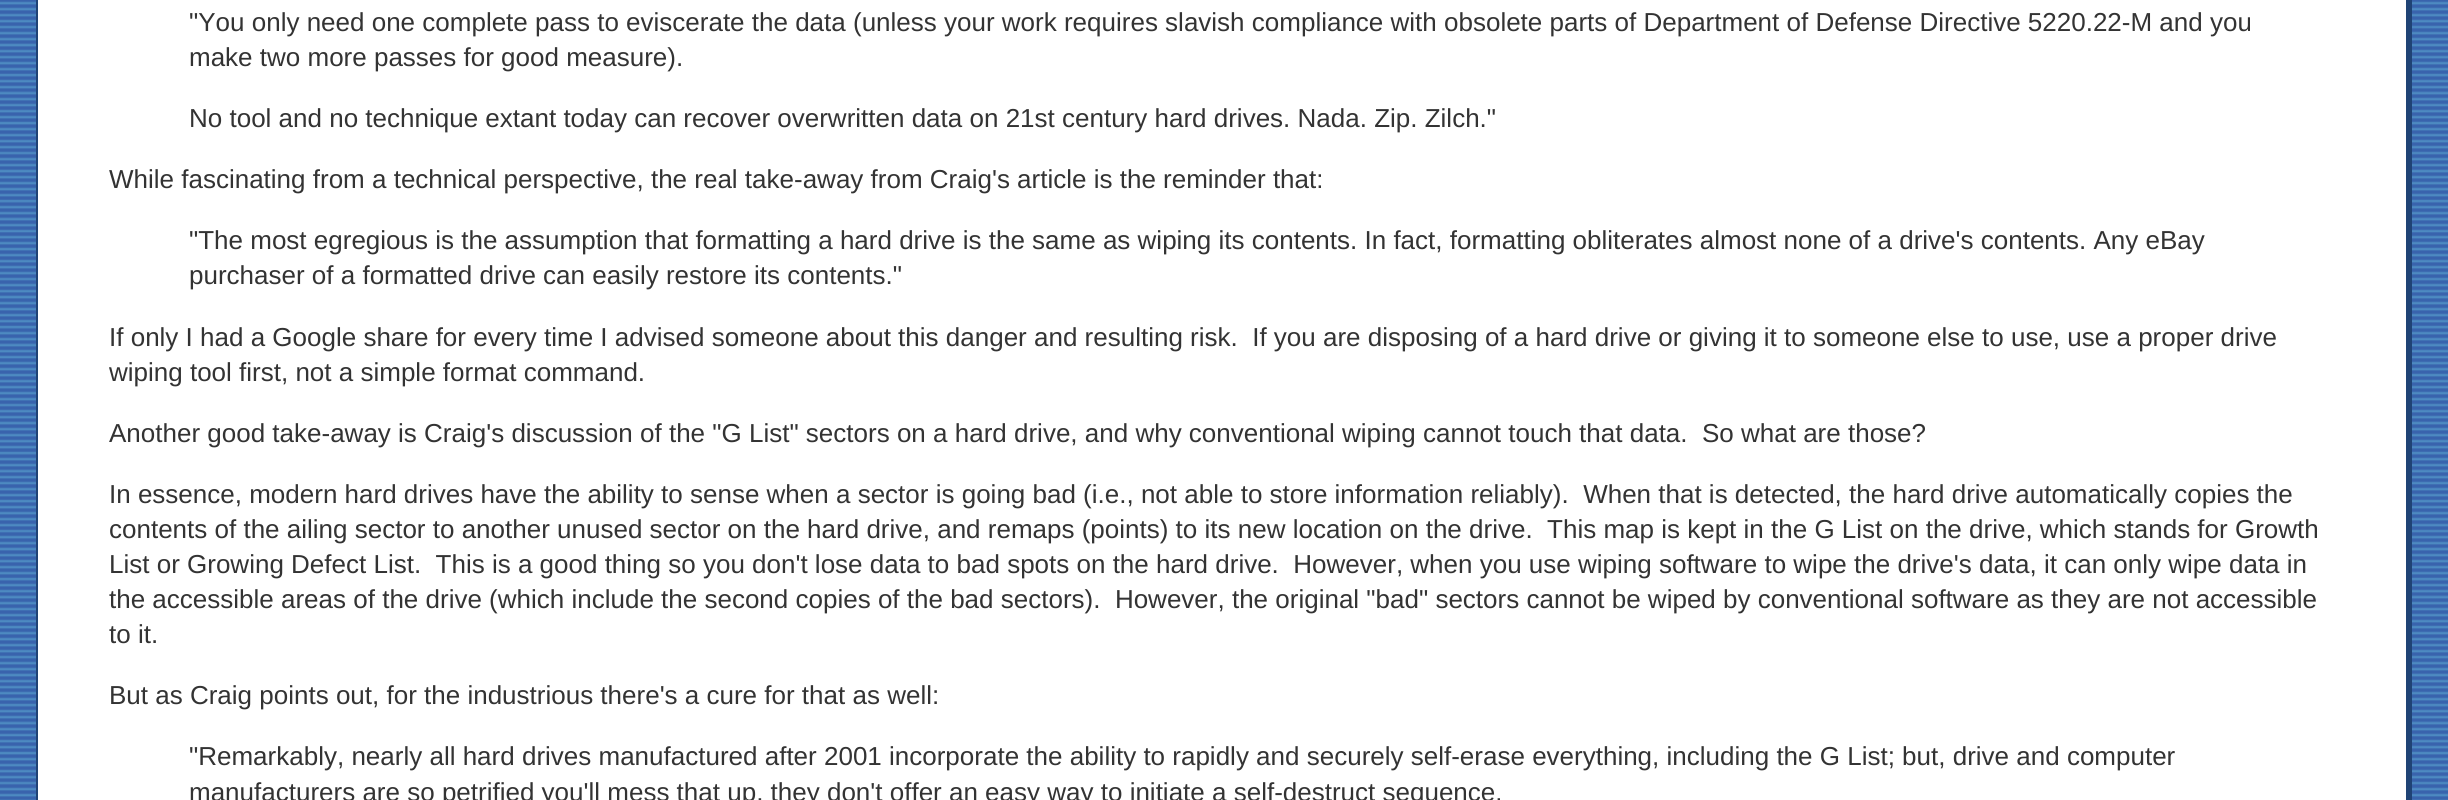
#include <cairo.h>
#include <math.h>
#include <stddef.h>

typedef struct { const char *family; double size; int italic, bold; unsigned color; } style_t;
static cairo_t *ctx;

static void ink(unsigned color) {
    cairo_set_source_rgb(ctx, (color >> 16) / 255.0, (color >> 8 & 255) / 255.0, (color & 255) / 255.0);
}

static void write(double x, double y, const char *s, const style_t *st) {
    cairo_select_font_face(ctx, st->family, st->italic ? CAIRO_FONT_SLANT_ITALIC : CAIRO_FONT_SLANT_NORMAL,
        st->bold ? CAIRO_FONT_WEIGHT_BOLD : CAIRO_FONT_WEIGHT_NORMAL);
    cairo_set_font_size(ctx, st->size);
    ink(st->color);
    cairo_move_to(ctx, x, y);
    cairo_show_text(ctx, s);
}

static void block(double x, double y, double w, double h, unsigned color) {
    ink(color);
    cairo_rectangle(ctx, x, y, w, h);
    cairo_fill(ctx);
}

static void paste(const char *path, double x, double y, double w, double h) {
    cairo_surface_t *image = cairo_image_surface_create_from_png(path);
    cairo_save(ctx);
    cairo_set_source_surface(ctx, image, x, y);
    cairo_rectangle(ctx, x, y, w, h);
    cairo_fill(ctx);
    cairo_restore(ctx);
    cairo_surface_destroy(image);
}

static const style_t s1 = {"Liberation Sans", 26, 0, 0, 0x333333};

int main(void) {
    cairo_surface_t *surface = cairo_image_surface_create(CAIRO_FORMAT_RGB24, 2448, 800);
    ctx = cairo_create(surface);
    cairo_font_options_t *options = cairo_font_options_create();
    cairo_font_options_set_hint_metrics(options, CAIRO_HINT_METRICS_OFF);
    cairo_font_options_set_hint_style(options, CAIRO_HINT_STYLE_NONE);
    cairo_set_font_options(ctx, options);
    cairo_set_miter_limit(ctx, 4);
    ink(0xffffff);
    cairo_paint(ctx);
    paste("pic1.png", 0, 0, 2448, 800);
    block(38, 0, 2368, 800, 0xffffff);
    block(2406, 0, 6, 800, 0x204375);
    block(36, 0, 2, 800, 0x204375);
    write(189, 31, "\"You only need one complete pass to eviscerate the data (unless your work requires slavish compliance with obsolete parts of Department of Defense Directive 5220.22-M and you", &s1);
    write(189, 66, "make two more passes for good measure).", &s1);
    write(189, 127, "No tool and no technique extant today can recover overwritten data on 21st century hard drives. Nada. Zip. Zilch.\"", &s1);
    write(109, 188, "While fascinating from a technical perspective, the real take-away from Craig's article is the reminder that:", &s1);
    write(189, 249, "\"The most egregious is the assumption that formatting a hard drive is the same as wiping its contents. In fact, formatting obliterates almost none of a drive's contents. Any eBay", &s1);
    write(189, 284, "purchaser of a formatted drive can easily restore its contents.\"", &s1);
    write(109, 346, "If only I had a Google share for every time I advised someone about this danger and resulting risk.  If you are disposing of a hard drive or giving it to someone else to use, use a proper drive", &s1);
    write(109, 381, "wiping tool first, not a simple format command.", &s1);
    write(109, 442, "Another good take-away is Craig's discussion of the \"G List\" sectors on a hard drive, and why conventional wiping cannot touch that data.  So what are those?", &s1);
    write(109, 503, "In essence, modern hard drives have the ability to sense when a sector is going bad (i.e., not able to store information reliably).  When that is detected, the hard drive automatically copies the", &s1);
    write(109, 538, "contents of the ailing sector to another unused sector on the hard drive, and remaps (points) to its new location on the drive.  This map is kept in the G List on the drive, which stands for Growth", &s1);
    write(109, 573, "List or Growing Defect List.  This is a good thing so you don't lose data to bad spots on the hard drive.  However, when you use wiping software to wipe the drive's data, it can only wipe data in", &s1);
    write(109, 608, "the accessible areas of the drive (which include the second copies of the bad sectors).  However, the original \"bad\" sectors cannot be wiped by conventional software as they are not accessible", &s1);
    write(109, 643, "to it.", &s1);
    write(109, 704, "But as Craig points out, for the industrious there's a cure for that as well:", &s1);
    write(189, 765, "\"Remarkably, nearly all hard drives manufactured after 2001 incorporate the ability to rapidly and securely self-erase everything, including the G List; but, drive and computer", &s1);
    write(189, 801, "manufacturers are so petrified you'll mess that up, they don't offer an easy way to initiate a self-destruct sequence.", &s1);
    cairo_surface_write_to_png(surface, "screenshot.png");
    cairo_font_options_destroy(options);
    cairo_destroy(ctx);
    cairo_surface_destroy(surface);
    return 0;
}
